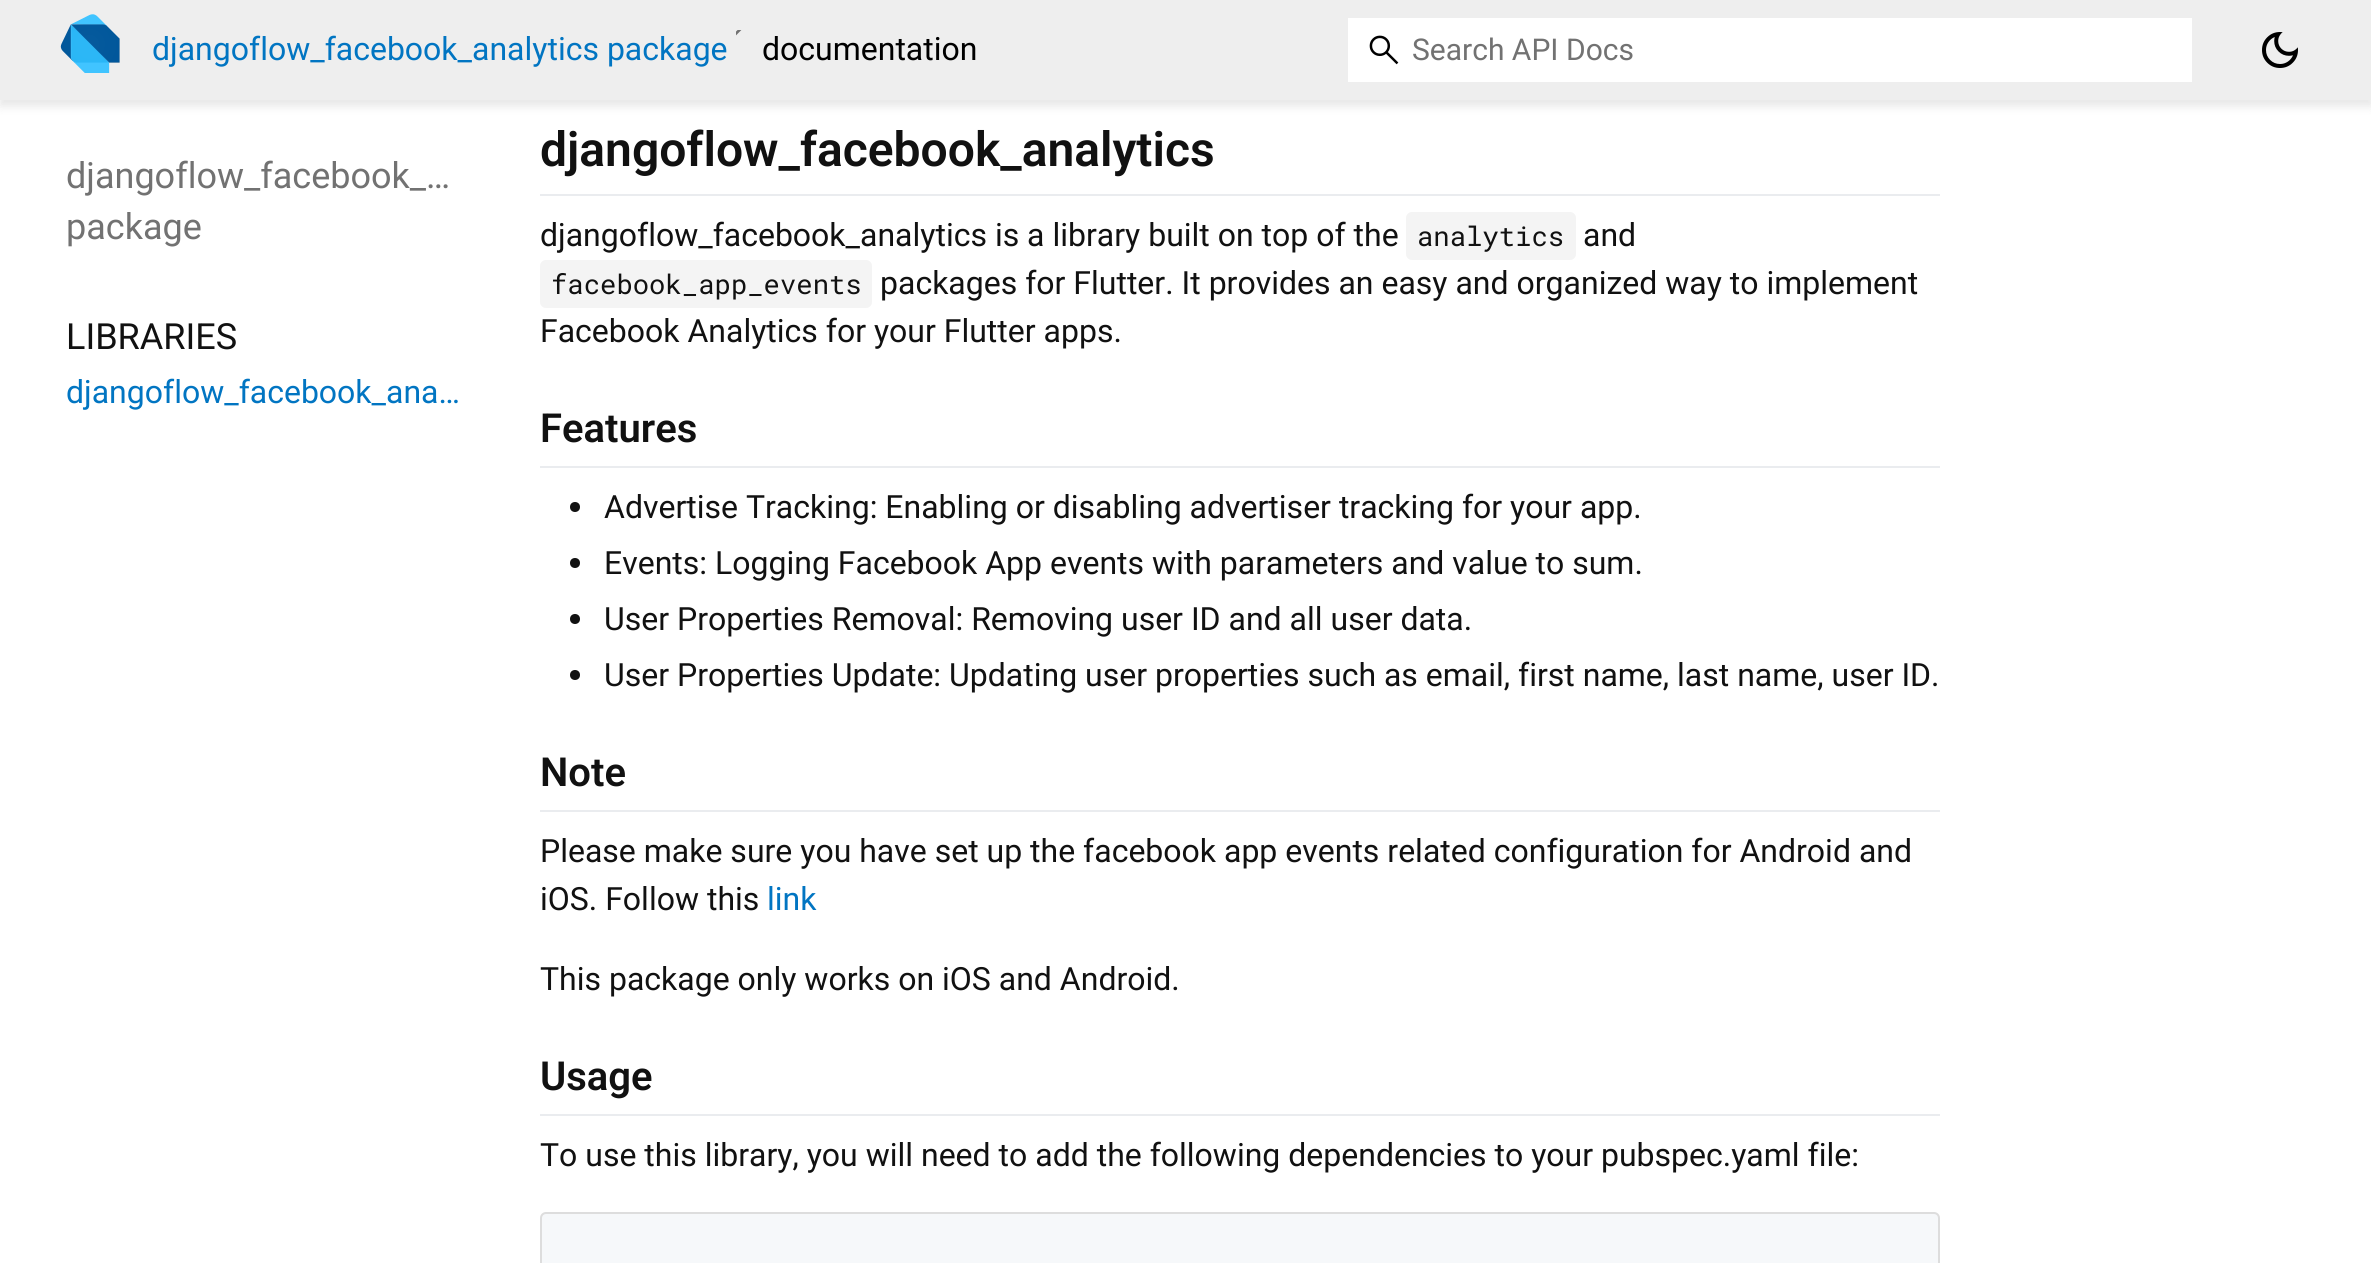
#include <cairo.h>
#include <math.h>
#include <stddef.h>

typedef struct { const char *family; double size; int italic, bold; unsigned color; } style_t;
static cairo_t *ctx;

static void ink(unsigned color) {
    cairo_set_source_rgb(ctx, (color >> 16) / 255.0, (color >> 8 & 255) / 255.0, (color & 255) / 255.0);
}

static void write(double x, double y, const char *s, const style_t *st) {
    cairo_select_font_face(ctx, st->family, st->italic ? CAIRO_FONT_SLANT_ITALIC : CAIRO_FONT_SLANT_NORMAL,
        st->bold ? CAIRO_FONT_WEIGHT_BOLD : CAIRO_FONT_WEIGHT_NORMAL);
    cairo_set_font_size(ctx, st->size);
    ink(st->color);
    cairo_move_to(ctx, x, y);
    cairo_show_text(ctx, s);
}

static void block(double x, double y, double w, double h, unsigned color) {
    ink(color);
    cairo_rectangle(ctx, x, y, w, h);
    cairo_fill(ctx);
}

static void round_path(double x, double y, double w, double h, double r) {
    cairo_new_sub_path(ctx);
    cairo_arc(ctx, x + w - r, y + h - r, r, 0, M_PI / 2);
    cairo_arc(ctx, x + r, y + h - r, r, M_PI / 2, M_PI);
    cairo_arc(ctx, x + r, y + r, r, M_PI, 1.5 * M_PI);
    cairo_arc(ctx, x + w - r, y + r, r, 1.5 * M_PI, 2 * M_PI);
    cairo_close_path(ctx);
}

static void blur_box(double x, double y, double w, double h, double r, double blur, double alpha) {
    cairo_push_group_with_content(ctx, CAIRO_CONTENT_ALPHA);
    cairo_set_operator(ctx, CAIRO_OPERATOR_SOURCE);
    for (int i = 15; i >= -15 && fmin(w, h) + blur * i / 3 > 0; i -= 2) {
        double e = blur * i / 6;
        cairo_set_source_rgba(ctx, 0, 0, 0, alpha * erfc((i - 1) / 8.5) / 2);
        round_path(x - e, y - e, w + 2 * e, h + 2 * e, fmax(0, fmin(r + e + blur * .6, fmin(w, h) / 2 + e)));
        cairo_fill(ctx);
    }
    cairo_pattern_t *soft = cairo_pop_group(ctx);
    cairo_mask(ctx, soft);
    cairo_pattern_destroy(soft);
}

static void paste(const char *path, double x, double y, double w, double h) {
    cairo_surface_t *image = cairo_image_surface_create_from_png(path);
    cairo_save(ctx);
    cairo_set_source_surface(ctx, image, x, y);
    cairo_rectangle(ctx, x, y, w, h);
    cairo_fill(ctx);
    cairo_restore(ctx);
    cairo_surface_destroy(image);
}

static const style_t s1 = {"Roboto", 32, 0, 0, 0x0175c2};
static const style_t s2 = {"Roboto", 32, 0, 0, 0x000000};
static const style_t s3 = {"Roboto", 30, 0, 0, 0x727272};
static const style_t s4 = {"Roboto", 36, 0, 0, 0x727272};
static const style_t s5 = {"Roboto", 36, 0, 0, 0x111111};
static const style_t s6 = {"Roboto SemiBold", 48, 0, 0, 0x111111};
static const style_t s7 = {"Roboto", 32, 0, 0, 0x111111};
static const style_t s8 = {"Roboto Mono", 27.25, 0, 0, 0x111111};
static const style_t s9 = {"Roboto SemiBold", 40, 0, 0, 0x111111};

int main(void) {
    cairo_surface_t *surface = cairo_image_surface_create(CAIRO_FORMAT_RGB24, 2371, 1263);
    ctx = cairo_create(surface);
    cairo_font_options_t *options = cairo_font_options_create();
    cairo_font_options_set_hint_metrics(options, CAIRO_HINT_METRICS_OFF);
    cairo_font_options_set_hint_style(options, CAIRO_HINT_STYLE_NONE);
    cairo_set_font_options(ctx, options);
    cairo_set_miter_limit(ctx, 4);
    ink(0xffffff);
    cairo_paint(ctx);
    ink(0x000000);
    blur_box(0, 6, 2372, 100, 0, 5, 0.1);
    block(0, 0, 2371, 100, 0xeeeeee);
    paste("pic1.png", 60, 14, 60, 59);
    write(152, 60, "djangoflow_facebook_analytics package", &s1);
    paste("pic2.png", 736, 30, 6, 6);
    write(762, 60, "documentation", &s2);
    block(1348, 18, 844, 64, 0xffffff);
    paste("pic3.png", 1369, 35, 30, 30);
    write(1412, 60, "Search API Docs", &s3);
    paste("pic4.png", 2262, 32, 36, 36);
    write(66, 188, "djangoflow_facebook_…", &s4);
    write(66, 239, "package", &s4);
    write(66, 349, "LIBRARIES", &s5);
    write(66, 403, "djangoflow_facebook_ana…", &s1);
    block(540, 194, 1400, 2, 0xeaecef);
    write(540, 166, "djangoflow_facebook_analytics", &s6);
    write(540, 246, "djangoflow_facebook_analytics is a library built on top of the", &s7);
    ink(0xf4f4f4);
    round_path(1406, 212, 170, 48, 6);
    cairo_fill(ctx);
    write(1417, 246, "analytics", &s8);
    write(1583, 246, "and", &s7);
    ink(0xf4f4f4);
    round_path(540, 260, 332, 48, 6);
    cairo_fill(ctx);
    write(551, 294, "facebook_app_events", &s8);
    write(880, 294, "packages for Flutter. It provides an easy and organized way to implement", &s7);
    write(540, 342, "Facebook Analytics for your Flutter apps.", &s7);
    block(540, 466, 1400, 2, 0xeaecef);
    write(540, 442, "Features", &s9);
    cairo_new_path(ctx);
    cairo_arc(ctx, 575, 507, 5, 0, 2 * M_PI);
    cairo_fill(ctx);
    write(604, 518, "Advertise Tracking: Enabling or disabling advertiser tracking for your app.", &s7);
    cairo_new_path(ctx);
    cairo_arc(ctx, 575, 563, 5, 0, 2 * M_PI);
    cairo_fill(ctx);
    write(604, 574, "Events: Logging Facebook App events with parameters and value to sum.", &s7);
    cairo_new_path(ctx);
    cairo_arc(ctx, 575, 619, 5, 0, 2 * M_PI);
    cairo_fill(ctx);
    write(604, 630, "User Properties Removal: Removing user ID and all user data.", &s7);
    cairo_new_path(ctx);
    cairo_arc(ctx, 575, 675, 5, 0, 2 * M_PI);
    cairo_fill(ctx);
    write(604, 686, "User Properties Update: Updating user properties such as email, first name, last name, user ID.", &s7);
    block(540, 810, 1400, 2, 0xeaecef);
    write(540, 786, "Note", &s9);
    write(540, 862, "Please make sure you have set up the facebook app events related configuration for Android and", &s7);
    write(540, 910, "iOS. Follow this", &s7);
    write(767, 910, "link", &s1);
    write(540, 990, "This package only works on iOS and Android.", &s7);
    block(540, 1114, 1400, 2, 0xeaecef);
    write(540, 1090, "Usage", &s9);
    write(540, 1166, "To use this library, you will need to add the following dependencies to your pubspec.yaml file:", &s7);
    ink(0xf6f8fa);
    round_path(541, 1213, 1398, 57, 5);
    cairo_fill_preserve(ctx);
    ink(0xdddddd);
    cairo_stroke(ctx);
    cairo_surface_write_to_png(surface, "screenshot.png");
    cairo_font_options_destroy(options);
    cairo_destroy(ctx);
    cairo_surface_destroy(surface);
    return 0;
}
